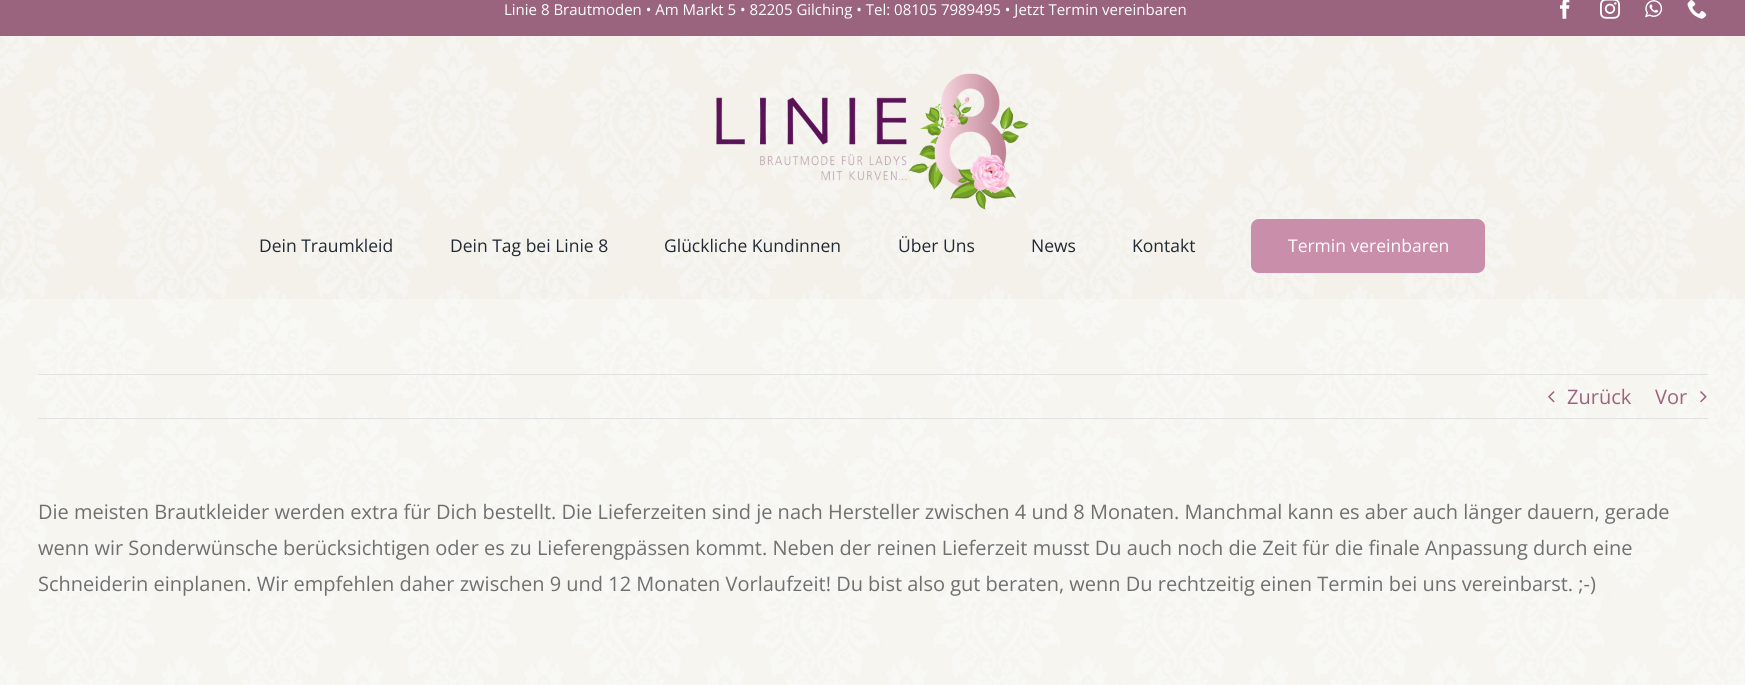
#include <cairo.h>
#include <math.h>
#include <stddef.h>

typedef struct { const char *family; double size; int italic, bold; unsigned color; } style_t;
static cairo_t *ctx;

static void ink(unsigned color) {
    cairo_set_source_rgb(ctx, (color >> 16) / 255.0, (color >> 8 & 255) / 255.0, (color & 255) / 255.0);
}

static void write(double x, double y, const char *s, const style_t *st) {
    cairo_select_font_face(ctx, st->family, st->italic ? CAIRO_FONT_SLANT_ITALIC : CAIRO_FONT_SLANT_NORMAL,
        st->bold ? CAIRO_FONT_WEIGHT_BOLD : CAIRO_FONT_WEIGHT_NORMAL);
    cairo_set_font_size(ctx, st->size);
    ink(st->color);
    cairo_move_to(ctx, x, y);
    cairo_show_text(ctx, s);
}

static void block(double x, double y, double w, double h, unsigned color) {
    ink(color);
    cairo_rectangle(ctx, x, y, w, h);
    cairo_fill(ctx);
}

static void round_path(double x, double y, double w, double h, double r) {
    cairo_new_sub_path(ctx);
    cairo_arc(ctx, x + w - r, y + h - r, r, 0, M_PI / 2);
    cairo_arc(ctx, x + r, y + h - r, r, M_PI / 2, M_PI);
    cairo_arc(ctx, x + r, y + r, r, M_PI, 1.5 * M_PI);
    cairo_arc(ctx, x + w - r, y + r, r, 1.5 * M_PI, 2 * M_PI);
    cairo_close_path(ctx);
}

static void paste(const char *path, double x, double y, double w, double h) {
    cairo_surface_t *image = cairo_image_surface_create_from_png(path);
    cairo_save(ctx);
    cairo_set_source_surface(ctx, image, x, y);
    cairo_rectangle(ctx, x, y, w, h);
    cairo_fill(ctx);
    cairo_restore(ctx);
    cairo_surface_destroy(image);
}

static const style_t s1 = {"Open Sans", 15, 0, 0, 0xffffff};
static const style_t s2 = {"Open Sans", 17.5, 0, 0, 0x212934};
static const style_t s3 = {"Open Sans", 17.5, 0, 0, 0xffffff};
static const style_t s4 = {"Open Sans", 20, 0, 0, 0x9b647e};
static const style_t s5 = {"Open Sans", 20, 0, 0, 0x707070};

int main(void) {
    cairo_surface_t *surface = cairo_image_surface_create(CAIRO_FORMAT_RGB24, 1745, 685);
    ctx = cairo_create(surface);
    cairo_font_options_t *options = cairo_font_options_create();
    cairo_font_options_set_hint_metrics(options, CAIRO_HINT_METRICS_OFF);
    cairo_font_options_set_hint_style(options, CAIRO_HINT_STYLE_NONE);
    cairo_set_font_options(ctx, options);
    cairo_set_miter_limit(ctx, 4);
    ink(0xffffff);
    cairo_paint(ctx);
    paste("pic1.png", 0, 36, 1745, 649);
    block(0, 0, 1745, 36, 0x9b647e);
    write(504, 15, "Linie 8 Brautmoden • Am Markt 5 • 82205 Gilching • Tel: 08105 7989495 • Jetzt Termin vereinbaren", &s1);
    paste("pic2.png", 1560, 0, 10, 19);
    paste("pic3.png", 1600, 0, 20, 19);
    paste("pic4.png", 1645, 0, 18, 18);
    paste("pic5.png", 1687, 0, 20, 19);
    paste("pic6.png", 716, 73, 313, 137);
    write(259, 252, "Dein Traumkleid", &s2);
    write(450, 252, "Dein Tag bei Linie 8", &s2);
    write(664, 252, "Glückliche Kundinnen", &s2);
    write(898, 252, "Über Uns", &s2);
    write(1031, 252, "News", &s2);
    write(1132, 252, "Kontakt", &s2);
    ink(0xc98ea9);
    round_path(1251, 219, 234, 54, 8);
    cairo_fill(ctx);
    write(1288, 252, "Termin vereinbaren", &s3);
    cairo_set_source_rgba(ctx, 1, 1, 1, 0.25);
    cairo_rectangle(ctx, 0, 299, 1745, 386);
    cairo_fill(ctx);
    block(38, 374, 1670, 1, 0xe2e2e2);
    block(38, 418, 1670, 1, 0xe2e2e2);
    paste("pic7.png", 1548, 391, 7, 12);
    write(1567, 404, "Zurück", &s4);
    write(1655, 404, "Vor", &s4);
    paste("pic8.png", 1700, 391, 7, 12);
    write(38, 519, "Die meisten Brautkleider werden extra für Dich bestellt. Die Lieferzeiten sind je nach Hersteller zwischen 4 und 8 Monaten. Manchmal kann es aber auch länger dauern, gerade", &s5);
    write(38, 555, "wenn wir Sonderwünsche berücksichtigen oder es zu Lieferengpässen kommt. Neben der reinen Lieferzeit musst Du auch noch die Zeit für die finale Anpassung durch eine", &s5);
    write(38, 591, "Schneiderin einplanen. Wir empfehlen daher zwischen 9 und 12 Monaten Vorlaufzeit! Du bist also gut beraten, wenn Du rechtzeitig einen Termin bei uns vereinbarst. ;-)", &s5);
    cairo_surface_write_to_png(surface, "screenshot.png");
    cairo_font_options_destroy(options);
    cairo_destroy(ctx);
    cairo_surface_destroy(surface);
    return 0;
}
